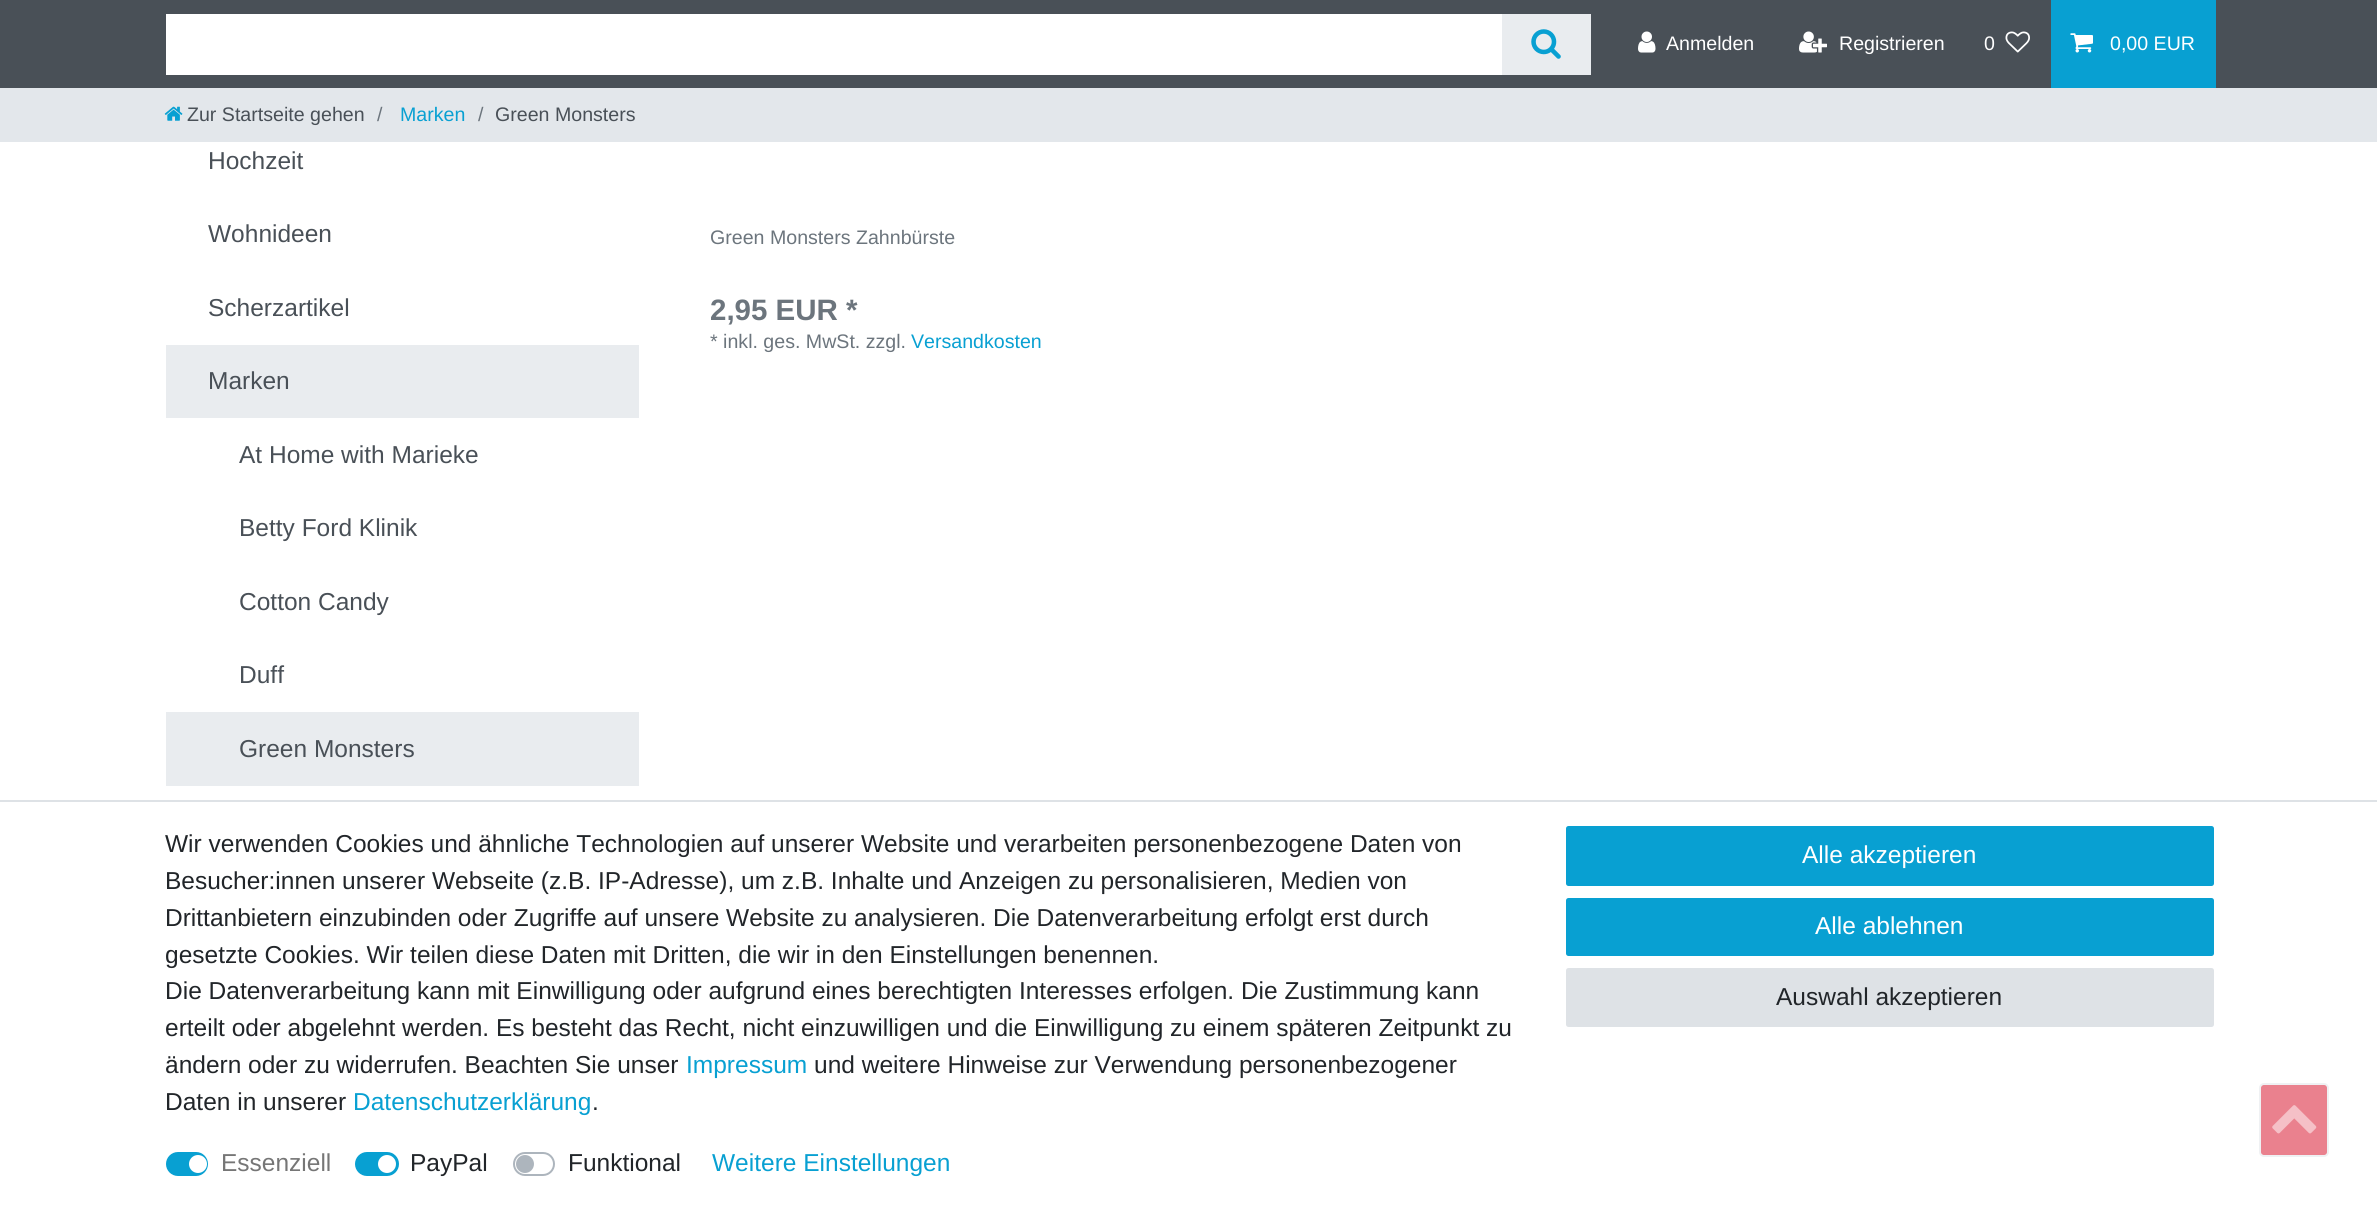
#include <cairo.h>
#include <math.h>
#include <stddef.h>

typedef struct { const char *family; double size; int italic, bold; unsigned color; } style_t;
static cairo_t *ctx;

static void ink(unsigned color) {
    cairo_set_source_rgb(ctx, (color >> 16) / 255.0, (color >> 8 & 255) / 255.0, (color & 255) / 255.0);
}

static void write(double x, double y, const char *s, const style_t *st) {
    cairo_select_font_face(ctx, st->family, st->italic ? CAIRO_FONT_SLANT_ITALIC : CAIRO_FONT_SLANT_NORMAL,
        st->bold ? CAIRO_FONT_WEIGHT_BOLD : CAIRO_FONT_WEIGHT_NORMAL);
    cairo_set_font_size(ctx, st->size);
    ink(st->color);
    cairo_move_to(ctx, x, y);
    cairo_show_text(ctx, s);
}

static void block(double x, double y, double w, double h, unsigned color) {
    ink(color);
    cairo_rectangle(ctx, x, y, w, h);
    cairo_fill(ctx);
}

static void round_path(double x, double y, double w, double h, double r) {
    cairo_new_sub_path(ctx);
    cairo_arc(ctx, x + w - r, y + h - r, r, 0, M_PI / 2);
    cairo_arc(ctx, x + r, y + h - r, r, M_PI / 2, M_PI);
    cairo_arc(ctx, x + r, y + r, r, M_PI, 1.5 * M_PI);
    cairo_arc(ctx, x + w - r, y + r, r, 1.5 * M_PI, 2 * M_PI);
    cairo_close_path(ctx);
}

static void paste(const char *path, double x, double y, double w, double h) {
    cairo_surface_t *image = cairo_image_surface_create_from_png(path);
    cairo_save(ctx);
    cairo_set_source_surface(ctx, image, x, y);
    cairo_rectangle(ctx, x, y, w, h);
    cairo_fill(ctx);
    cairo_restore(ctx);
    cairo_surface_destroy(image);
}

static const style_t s1 = {"Liberation Sans", 19.6, 0, 0, 0xffffff};
static const style_t s2 = {"Liberation Sans", 19.6, 0, 0, 0x495057};
static const style_t s3 = {"Liberation Sans", 19.6, 0, 0, 0x6c757d};
static const style_t s4 = {"Liberation Sans", 19.6, 0, 0, 0x08a0d2};
static const style_t s5 = {"Liberation Sans", 24.5, 0, 0, 0x495057};
static const style_t s6 = {"Liberation Sans", 29.5, 0, 1, 0x6c757d};
static const style_t s7 = {"Liberation Sans", 24.5, 0, 0, 0x212529};
static const style_t s8 = {"Liberation Sans", 24.5, 0, 0, 0x08a0d2};
static const style_t s9 = {"Liberation Sans", 24.5, 0, 0, 0x767676};
static const style_t s10 = {"Liberation Sans", 24.5, 0, 0, 0xffffff};

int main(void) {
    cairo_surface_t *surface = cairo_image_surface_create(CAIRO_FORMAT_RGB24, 2377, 1205);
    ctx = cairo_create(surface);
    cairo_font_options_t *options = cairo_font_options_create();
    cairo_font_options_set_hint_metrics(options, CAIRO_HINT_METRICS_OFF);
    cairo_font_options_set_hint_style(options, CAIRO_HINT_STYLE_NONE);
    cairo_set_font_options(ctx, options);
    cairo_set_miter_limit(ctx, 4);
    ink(0xffffff);
    cairo_paint(ctx);
    block(0, 0, 2377, 88, 0x495057);
    block(166, 14, 1336, 61, 0xffffff);
    block(1502, 14, 89, 61, 0xe9ecef);
    paste("pic1.png", 1531, 29, 30, 30);
    paste("pic2.png", 1638, 31, 18, 22);
    write(1666, 50, "Anmelden", &s1);
    paste("pic3.png", 1799, 31, 28, 22);
    write(1839, 50, "Registrieren", &s1);
    write(1984, 50, "0", &s1);
    paste("pic4.png", 2005, 31, 25, 22);
    block(2051, 0, 165, 88, 0x08a0d2);
    paste("pic5.png", 2070, 33, 23, 20);
    write(2110, 50, "0,00 EUR", &s1);
    block(0, 88, 2377, 54, 0xe3e7eb);
    paste("pic6.png", 164, 106, 19, 15);
    write(187, 121, "Zur Startseite gehen", &s2);
    write(377, 121, "/", &s3);
    write(400, 121, "Marken", &s4);
    write(478, 121, "/", &s3);
    write(495, 121, "Green Monsters", &s2);
    write(208, 169, "Hochzeit", &s5);
    write(208, 242, "Wohnideen", &s5);
    write(208, 316, "Scherzartikel", &s5);
    block(166, 345, 473, 73, 0xe9ecef);
    write(208, 389, "Marken", &s5);
    write(239, 463, "At Home with Marieke", &s5);
    write(239, 536, "Betty Ford Klinik", &s5);
    write(239, 610, "Cotton Candy", &s5);
    write(239, 683, "Duff", &s5);
    block(166, 712, 473, 74, 0xe9ecef);
    write(239, 757, "Green Monsters", &s5);
    write(710, 244, "Green Monsters Zahnbürste", &s3);
    write(710, 320, "2,95 EUR *", &s6);
    write(710, 348, "* inkl. ges. MwSt. zzgl.", &s3);
    write(911, 348, "Versandkosten", &s4);
    block(0, 800, 2377, 2, 0xdee2e6);
    write(165, 852, "Wir verwenden Cookies und ähnliche Technologien auf unserer Website und verarbeiten personenbezogene Daten von", &s7);
    write(165, 889, "Besucher:innen unserer Webseite (z.B. IP-Adresse), um z.B. Inhalte und Anzeigen zu personalisieren, Medien von", &s7);
    write(165, 926, "Drittanbietern einzubinden oder Zugriffe auf unsere Website zu analysieren. Die Datenverarbeitung erfolgt erst durch", &s7);
    write(165, 963, "gesetzte Cookies. Wir teilen diese Daten mit Dritten, die wir in den Einstellungen benennen.", &s7);
    write(165, 999, "Die Datenverarbeitung kann mit Einwilligung oder aufgrund eines berechtigten Interesses erfolgen. Die Zustimmung kann", &s7);
    write(165, 1036, "erteilt oder abgelehnt werden. Es besteht das Recht, nicht einzuwilligen und die Einwilligung zu einem späteren Zeitpunkt zu", &s7);
    write(165, 1073, "ändern oder zu widerrufen. Beachten Sie unser", &s7);
    write(686, 1073, "Impressum", &s8);
    write(814, 1073, "und weitere Hinweise zur Verwendung personenbezogener", &s7);
    write(165, 1110, "Daten in unserer", &s7);
    write(353, 1110, "Datenschutzerklärung", &s8);
    write(592, 1110, ".", &s7);
    ink(0x08a0d2);
    round_path(167, 1153, 40, 22, 11);
    cairo_fill_preserve(ctx);
    cairo_stroke(ctx);
    write(221, 1171, "Essenziell", &s9);
    ink(0xffffff);
    cairo_new_path(ctx);
    cairo_arc(ctx, 198, 1164, 9, 0, 2 * M_PI);
    cairo_fill(ctx);
    ink(0x08a0d2);
    round_path(356, 1153, 42, 22, 11);
    cairo_fill_preserve(ctx);
    cairo_stroke(ctx);
    write(410, 1171, "PayPal", &s7);
    ink(0xffffff);
    cairo_new_path(ctx);
    cairo_arc(ctx, 387, 1164, 9, 0, 2 * M_PI);
    cairo_fill(ctx);
    round_path(514, 1153, 40, 22, 11);
    ink(0xadb5bd);
    cairo_stroke(ctx);
    write(568, 1171, "Funktional", &s7);
    ink(0xadb5bd);
    cairo_new_path(ctx);
    cairo_arc(ctx, 525, 1164, 9, 0, 2 * M_PI);
    cairo_fill(ctx);
    write(712, 1171, "Weitere Einstellungen", &s8);
    round_path(1567, 827, 646, 58, 1.5);
    cairo_fill_preserve(ctx);
    cairo_stroke(ctx);
    write(1802, 863, "Alle akzeptieren", &s10);
    ink(0x08a0d2);
    round_path(1567, 899, 646, 56, 1.5);
    cairo_fill_preserve(ctx);
    cairo_stroke(ctx);
    write(1815, 934, "Alle ablehnen", &s10);
    ink(0xdee2e6);
    round_path(1567, 969, 646, 57, 1.5);
    cairo_fill_preserve(ctx);
    cairo_stroke(ctx);
    write(1776, 1005, "Auswahl akzeptieren", &s7);
    ink(0xea818e);
    round_path(2260, 1084, 68, 72, 4);
    cairo_fill_preserve(ctx);
    ink(0xeff1f3);
    cairo_stroke(ctx);
    paste("pic7.png", 2272, 1105, 45, 29);
    cairo_surface_write_to_png(surface, "screenshot.png");
    cairo_font_options_destroy(options);
    cairo_destroy(ctx);
    cairo_surface_destroy(surface);
    return 0;
}
